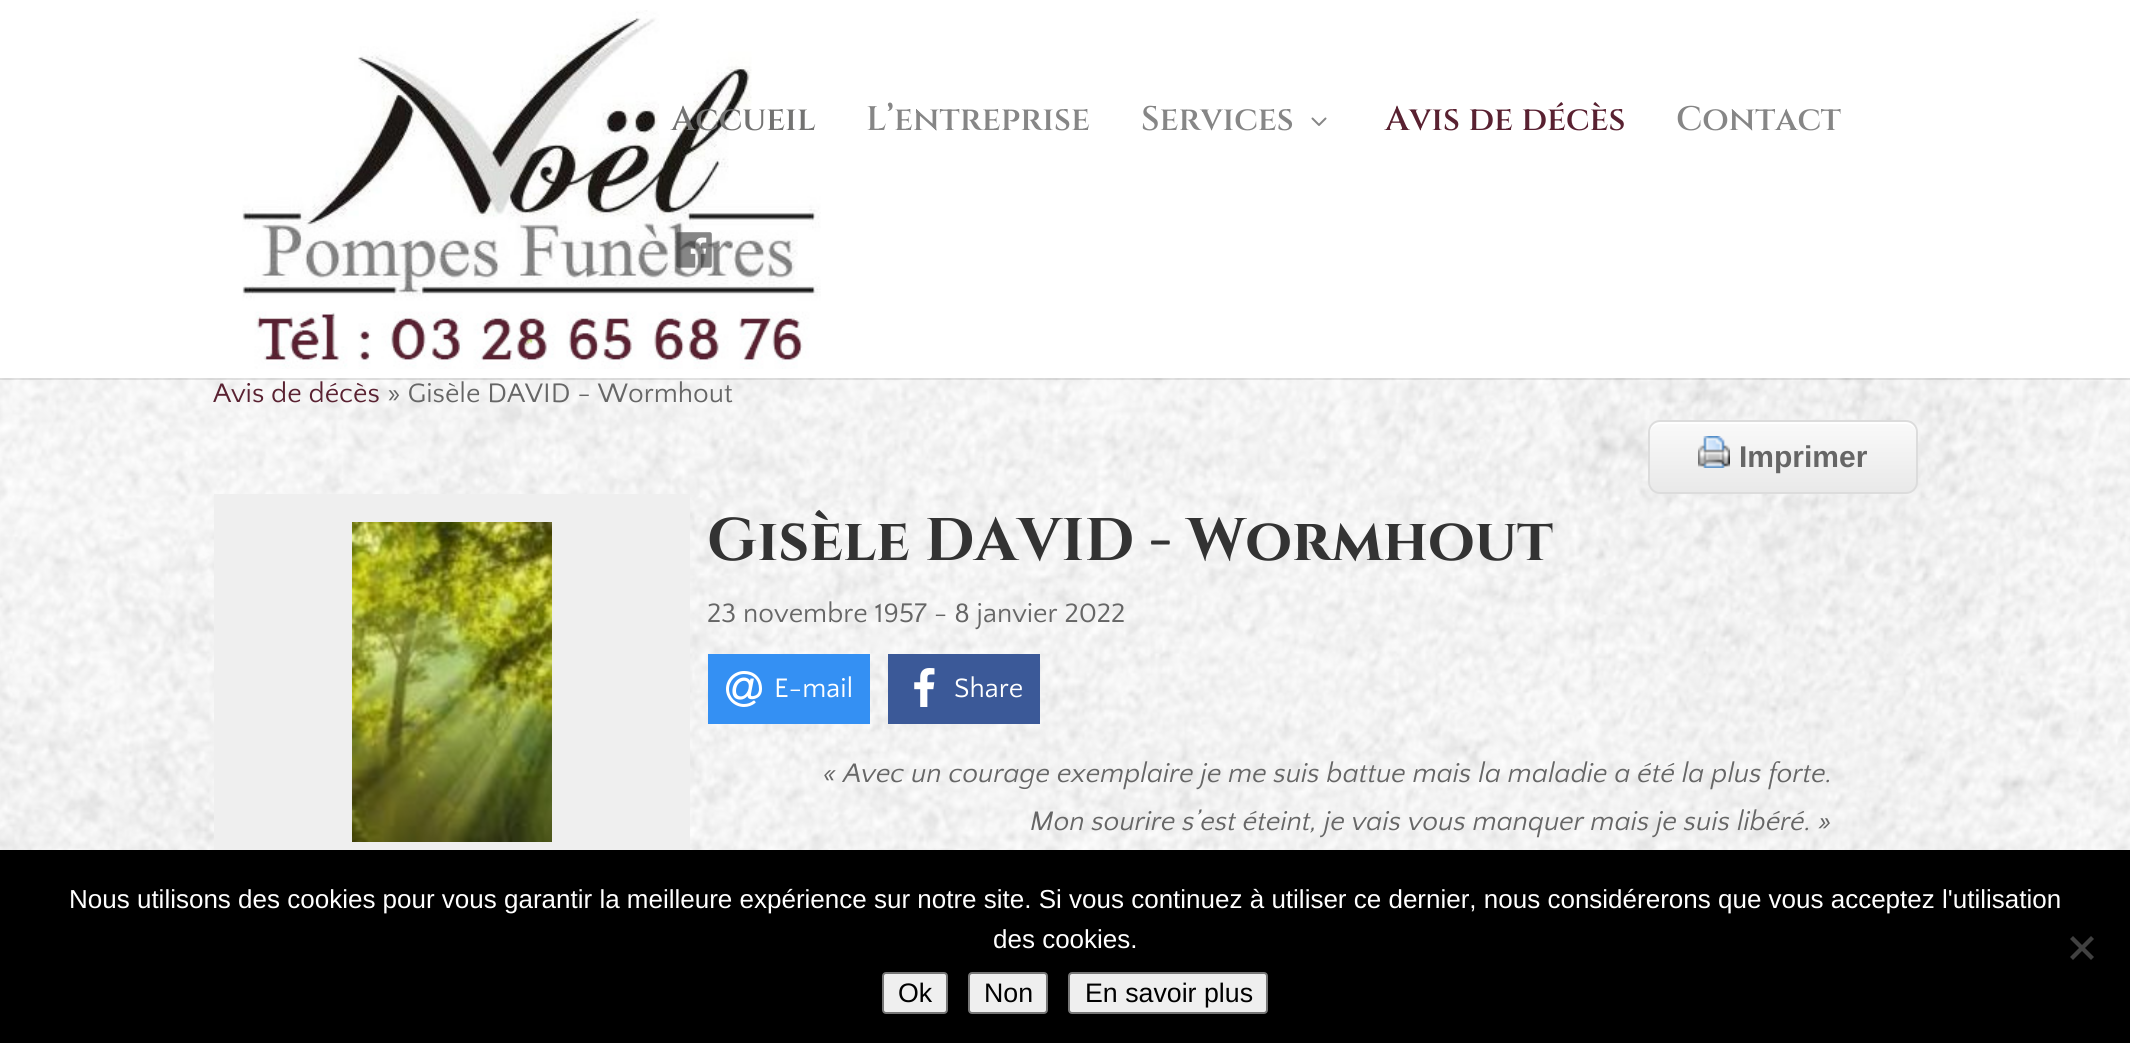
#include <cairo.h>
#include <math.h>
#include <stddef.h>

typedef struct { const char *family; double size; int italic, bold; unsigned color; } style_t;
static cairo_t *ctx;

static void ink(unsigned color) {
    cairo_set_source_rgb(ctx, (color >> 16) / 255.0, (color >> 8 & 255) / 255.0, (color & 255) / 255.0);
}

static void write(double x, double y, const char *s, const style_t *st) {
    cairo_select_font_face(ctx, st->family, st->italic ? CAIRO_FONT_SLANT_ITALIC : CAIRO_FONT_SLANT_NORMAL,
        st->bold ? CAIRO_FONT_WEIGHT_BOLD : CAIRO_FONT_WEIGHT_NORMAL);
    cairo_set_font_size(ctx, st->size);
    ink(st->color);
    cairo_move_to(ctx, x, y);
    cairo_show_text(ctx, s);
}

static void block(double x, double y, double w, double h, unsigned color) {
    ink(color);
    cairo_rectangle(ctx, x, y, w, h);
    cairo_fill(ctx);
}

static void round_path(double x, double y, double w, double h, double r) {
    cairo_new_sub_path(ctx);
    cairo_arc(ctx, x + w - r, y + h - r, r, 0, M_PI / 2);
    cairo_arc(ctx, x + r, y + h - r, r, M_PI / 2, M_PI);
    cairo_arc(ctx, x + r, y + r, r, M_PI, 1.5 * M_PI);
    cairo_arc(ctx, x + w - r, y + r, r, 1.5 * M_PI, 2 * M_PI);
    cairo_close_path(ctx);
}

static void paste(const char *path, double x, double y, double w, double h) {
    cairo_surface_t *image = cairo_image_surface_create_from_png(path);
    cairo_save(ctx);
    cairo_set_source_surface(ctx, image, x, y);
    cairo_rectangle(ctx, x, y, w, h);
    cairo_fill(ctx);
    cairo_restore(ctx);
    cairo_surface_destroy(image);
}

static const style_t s1 = {"Cinzel SemiBold", 34, 0, 0, 0x737372};
static const style_t s2 = {"Cinzel SemiBold", 34, 0, 0, 0x868686};
static const style_t s3 = {"Cinzel SemiBold", 34, 0, 0, 0x592131};
static const style_t s4 = {"Quattrocento Sans", 28, 0, 0, 0x592131};
static const style_t s5 = {"Quattrocento Sans", 28, 0, 0, 0x666666};
static const style_t s6 = {"Liberation Sans", 30, 0, 1, 0x666666};
static const style_t s7 = {"Cinzel", 60, 0, 1, 0x333333};
static const style_t s8 = {"Quattrocento Sans", 28, 0, 0, 0xffffff};
static const style_t s9 = {"Quattrocento Sans", 28, 1, 0, 0x666666};
static const style_t s10 = {"Liberation Sans", 26, 0, 0, 0xffffff};
static const style_t s11 = {"Liberation Sans", 26.75, 0, 0, 0x000000};

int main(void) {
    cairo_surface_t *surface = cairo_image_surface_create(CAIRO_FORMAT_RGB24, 2130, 1043);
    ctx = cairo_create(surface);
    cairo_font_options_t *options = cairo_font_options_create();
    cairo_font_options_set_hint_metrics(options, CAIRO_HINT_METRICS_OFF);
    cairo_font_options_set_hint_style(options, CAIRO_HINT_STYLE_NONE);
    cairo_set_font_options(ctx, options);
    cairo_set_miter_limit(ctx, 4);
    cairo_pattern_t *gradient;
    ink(0xffffff);
    cairo_paint(ctx);
    paste("pic4.png", 0, 378, 2130, 472);
    cairo_set_source_rgba(ctx, 0, 0, 0, 0.1);
    cairo_rectangle(ctx, 0, 378, 2130, 2);
    cairo_fill(ctx);
    paste("pic1.png", 242, 10, 579, 359);
    write(671, 130, "Accueil", &s1);
    write(866, 130, "L’entreprise", &s2);
    write(1141, 130, "Services", &s2);
    paste("pic2.png", 1311, 117, 16, 9);
    write(1385, 130, "Avis de décès", &s3);
    write(1676, 130, "Contact", &s2);
    paste("pic3.png", 676, 232, 36, 36);
    write(213, 402, "Avis de décès", &s4);
    write(387, 402, "» Gisèle DAVID - Wormhout", &s5);
    cairo_save(ctx);
    round_path(1648, 420, 270, 74, 12);
    cairo_clip(ctx);
    gradient = cairo_pattern_create_linear(1783, 422, 1783, 492);
    cairo_pattern_add_color_stop_rgba(gradient, 0.05, 0.976, 0.976, 0.976, 1);
    cairo_pattern_add_color_stop_rgba(gradient, 1, 0.914, 0.914, 0.914, 1);
    cairo_set_source(ctx, gradient);
    cairo_pattern_destroy(gradient);
    cairo_rectangle(ctx, 1648, 422, 270, 70);
    cairo_fill(ctx);
    cairo_restore(ctx);
    ink(0xffffff);
    cairo_new_path(ctx);
    cairo_move_to(ctx, 1660, 424);
    cairo_line_to(ctx, 1906, 424);
    cairo_curve_to(ctx, 1912, 424, 1916, 428, 1916, 434);
    cairo_line_to(ctx, 1916, 432);
    cairo_curve_to(ctx, 1916, 426, 1912, 422, 1906, 422);
    cairo_line_to(ctx, 1660, 422);
    cairo_curve_to(ctx, 1654, 422, 1650, 426, 1650, 432);
    cairo_line_to(ctx, 1650, 434);
    cairo_curve_to(ctx, 1650, 428, 1654, 424, 1660, 424);
    cairo_close_path(ctx);
    cairo_fill(ctx);
    round_path(1649, 421, 268, 72, 11);
    ink(0xdcdcdc);
    cairo_stroke(ctx);
    paste("pic5.png", 1698, 436, 32, 32);
    write(1739, 467, "Imprimer", &s6);
    block(214, 494, 476, 356, 0xefefef);
    paste("pic6.png", 352, 522, 200, 320);
    write(707, 560, "Gisèle DAVID - Wormhout", &s7);
    write(707, 622, "23 novembre 1957 - 8 janvier 2022", &s5);
    block(708, 654, 162, 70, 0x3490f3);
    paste("pic7.png", 726, 671, 36, 36);
    write(774, 697, "E-mail", &s8);
    block(888, 654, 152, 70, 0x3b5998);
    paste("pic8.png", 914, 668, 21, 39);
    write(954, 697, "Share", &s8);
    write(823, 782, "« Avec un courage exemplaire je me suis battue mais la maladie a été la plus forte.", &s9);
    write(1030, 830, "Mon sourire s’est éteint, je vais vous manquer mais je suis libéré. »", &s9);
    block(0, 850, 2130, 193, 0x000000);
    write(69, 908, "Nous utilisons des cookies pour vous garantir la meilleure expérience sur notre site. Si vous continuez à utiliser ce dernier, nous considérerons que vous acceptez l'utilisation", &s10);
    write(993, 948, "des cookies.", &s10);
    ink(0x404040);
    cairo_new_path(ctx);
    cairo_move_to(ctx, 2091, 936);
    cairo_line_to(ctx, 2094, 939);
    cairo_line_to(ctx, 2073, 960);
    cairo_line_to(ctx, 2070, 957);
    cairo_close_path(ctx);
    cairo_fill(ctx);
    cairo_new_path(ctx);
    cairo_move_to(ctx, 2070, 939);
    cairo_line_to(ctx, 2073, 936);
    cairo_line_to(ctx, 2094, 957);
    cairo_line_to(ctx, 2091, 960);
    cairo_close_path(ctx);
    cairo_fill(ctx);
    ink(0xefefef);
    round_path(883, 973, 64, 40, 3);
    cairo_fill_preserve(ctx);
    ink(0x767676);
    cairo_stroke(ctx);
    write(898, 1002, "Ok", &s11);
    ink(0xefefef);
    round_path(969, 973, 78, 40, 3);
    cairo_fill_preserve(ctx);
    ink(0x767676);
    cairo_stroke(ctx);
    write(984, 1002, "Non", &s11);
    ink(0xefefef);
    round_path(1069, 973, 198, 40, 3);
    cairo_fill_preserve(ctx);
    ink(0x767676);
    cairo_stroke(ctx);
    write(1085, 1002, "En savoir plus", &s11);
    cairo_surface_write_to_png(surface, "screenshot.png");
    cairo_font_options_destroy(options);
    cairo_destroy(ctx);
    cairo_surface_destroy(surface);
    return 0;
}
